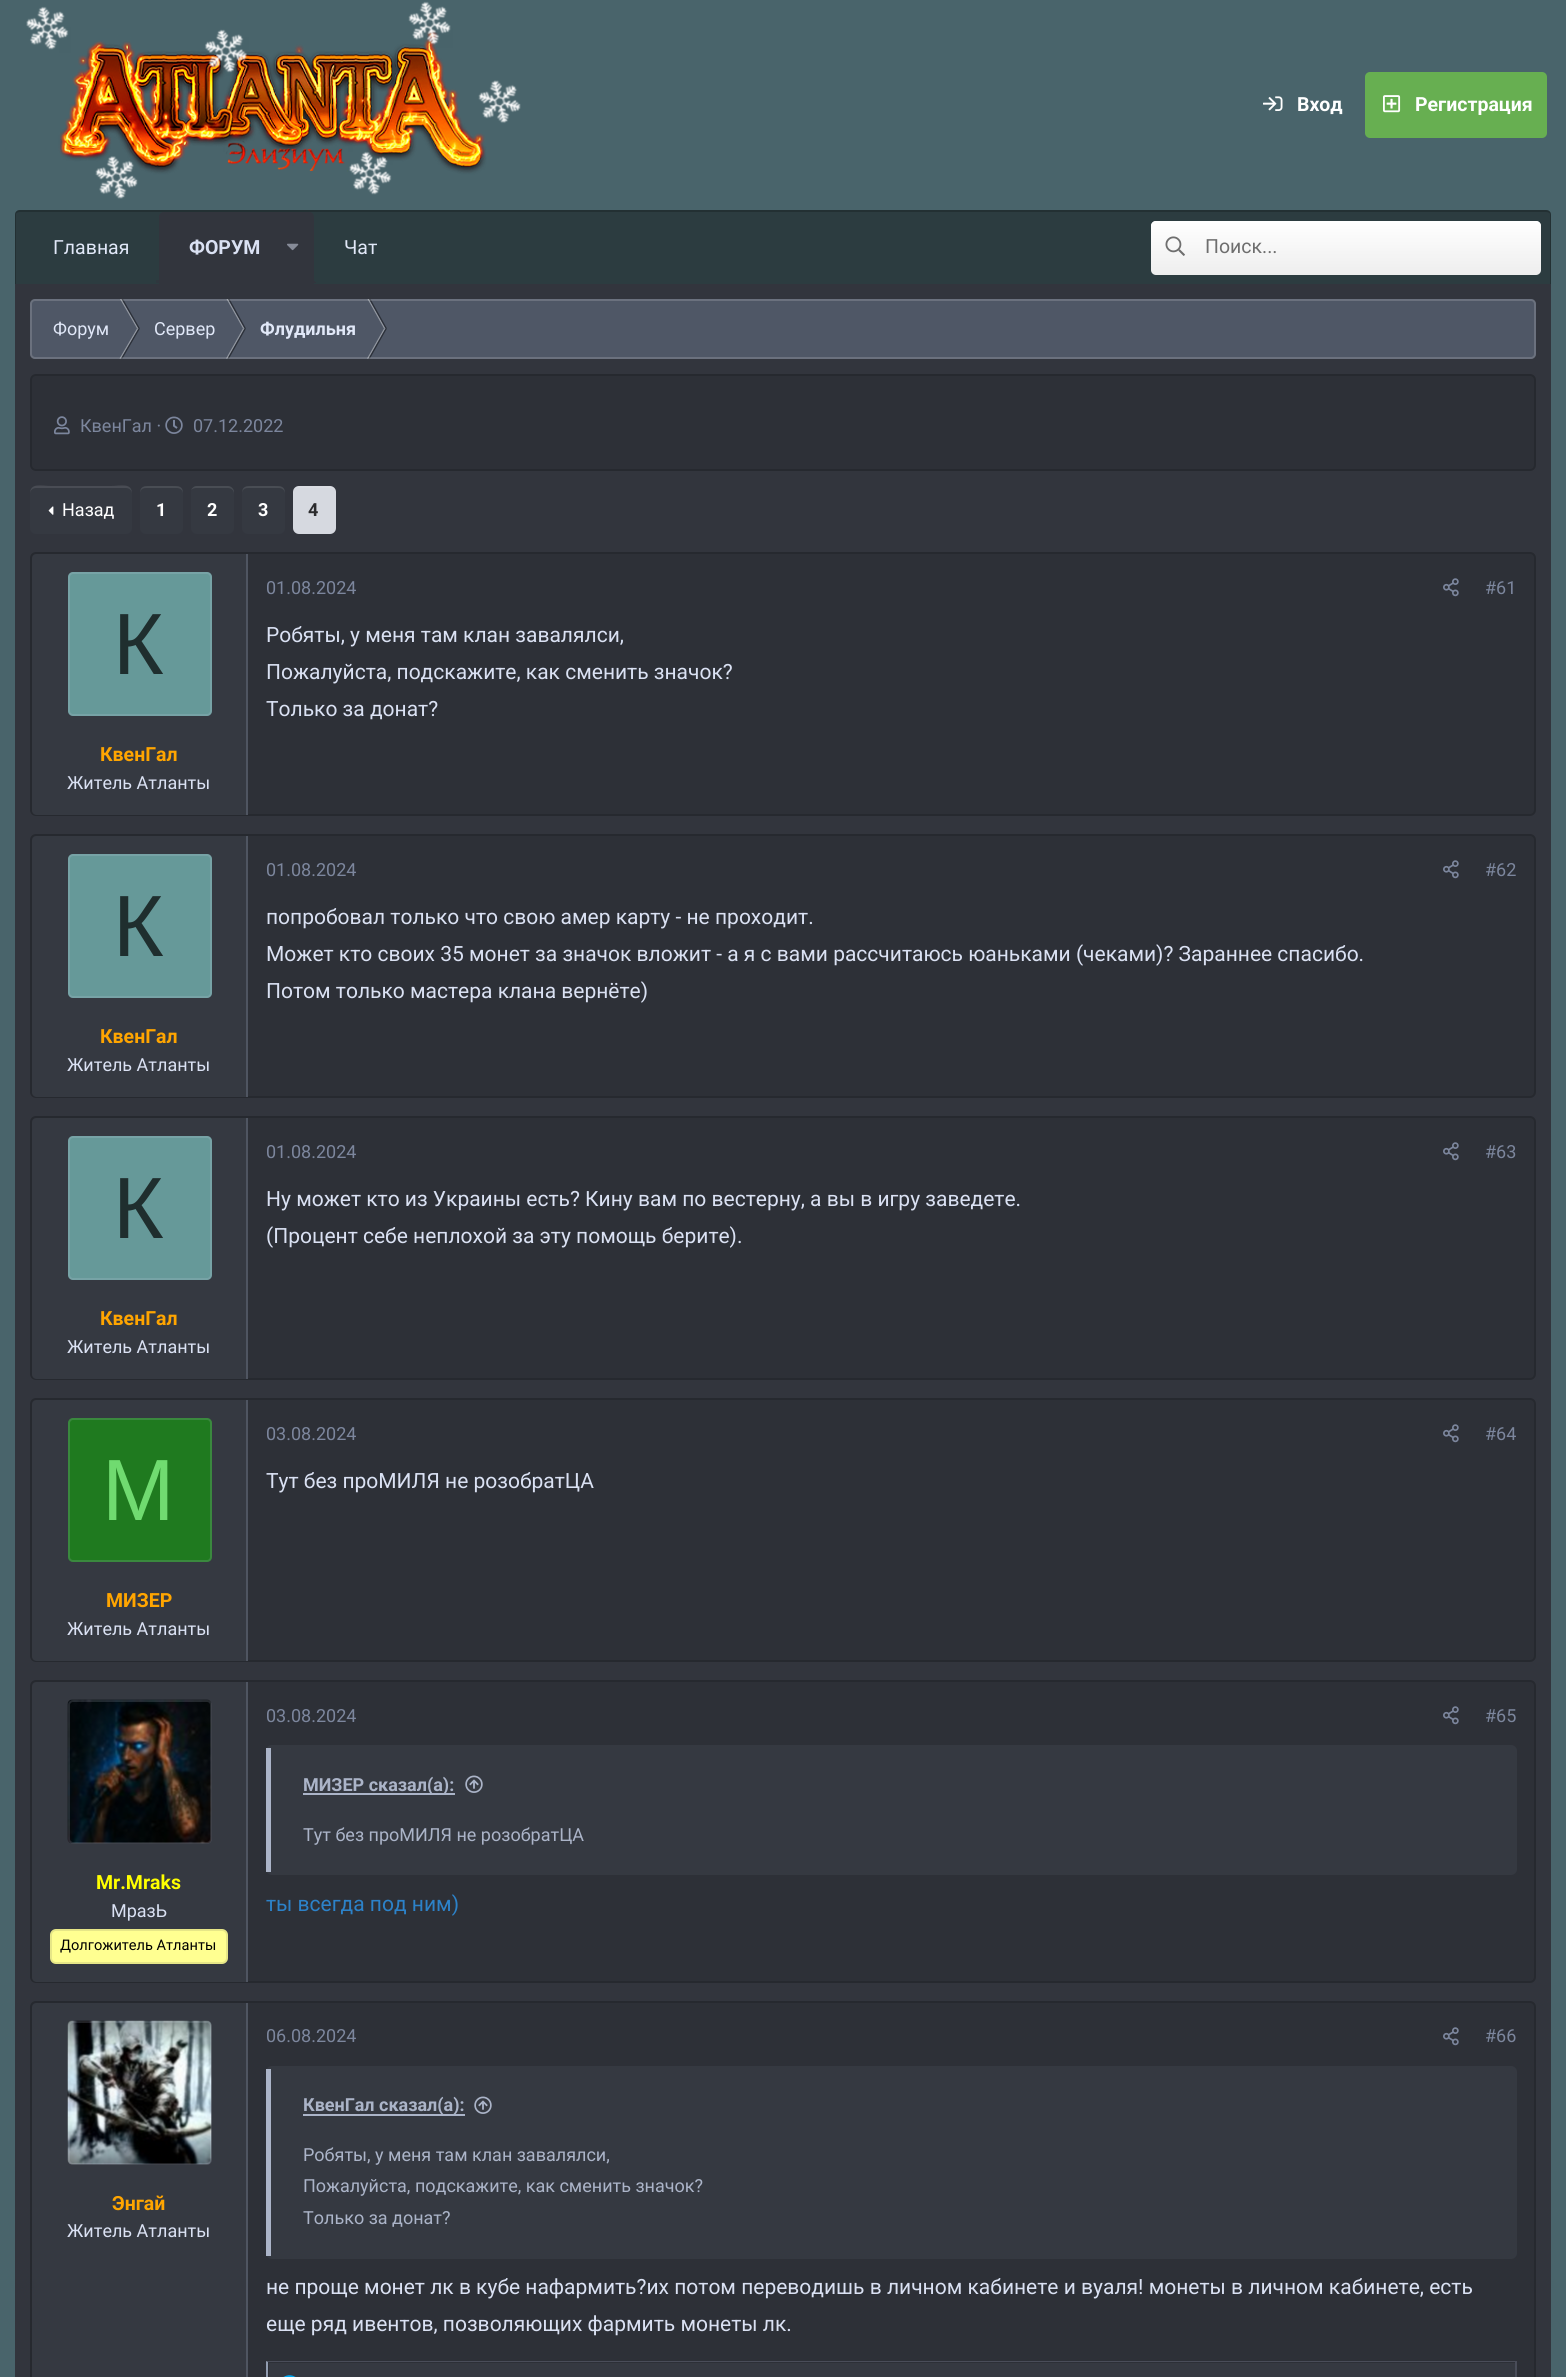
#include <cairo.h>
#include <math.h>
#include <stddef.h>

typedef struct { const char *family; double size; int italic, bold; unsigned color; } style_t;
static cairo_t *ctx;

static void ink(unsigned color) {
    cairo_set_source_rgb(ctx, (color >> 16) / 255.0, (color >> 8 & 255) / 255.0, (color & 255) / 255.0);
}

static void write(double x, double y, const char *s, const style_t *st) {
    cairo_select_font_face(ctx, st->family, st->italic ? CAIRO_FONT_SLANT_ITALIC : CAIRO_FONT_SLANT_NORMAL,
        st->bold ? CAIRO_FONT_WEIGHT_BOLD : CAIRO_FONT_WEIGHT_NORMAL);
    cairo_set_font_size(ctx, st->size);
    ink(st->color);
    cairo_move_to(ctx, x, y);
    cairo_show_text(ctx, s);
}

static void block(double x, double y, double w, double h, unsigned color) {
    ink(color);
    cairo_rectangle(ctx, x, y, w, h);
    cairo_fill(ctx);
}

static void round_path(double x, double y, double w, double h, double r) {
    cairo_new_sub_path(ctx);
    cairo_arc(ctx, x + w - r, y + h - r, r, 0, M_PI / 2);
    cairo_arc(ctx, x + r, y + h - r, r, M_PI / 2, M_PI);
    cairo_arc(ctx, x + r, y + r, r, M_PI, 1.5 * M_PI);
    cairo_arc(ctx, x + w - r, y + r, r, 1.5 * M_PI, 2 * M_PI);
    cairo_close_path(ctx);
}

static void paste(const char *path, double x, double y, double w, double h) {
    cairo_surface_t *image = cairo_image_surface_create_from_png(path);
    cairo_save(ctx);
    cairo_set_source_surface(ctx, image, x, y);
    cairo_rectangle(ctx, x, y, w, h);
    cairo_fill(ctx);
    cairo_restore(ctx);
    cairo_surface_destroy(image);
}

static const style_t s1 = {"Roboto", 19.5, 0, 1, 0xffffff};
static const style_t s2 = {"Roboto", 19.5, 0, 0, 0xe1e8f8};
static const style_t s3 = {"Roboto", 19.5, 0, 1, 0xdae1f3};
static const style_t s4 = {"Roboto", 19.5, 0, 0, 0x6e6e6e};
static const style_t s5 = {"Roboto", 18, 0, 0, 0xe1e8f8};
static const style_t s6 = {"Roboto", 18, 0, 1, 0xe1e8f8};
static const style_t s7 = {"Roboto", 18, 0, 0, 0x7c869d};
static const style_t s8 = {"Roboto", 18, 0, 0, 0xffffff};
static const style_t s9 = {"Roboto", 18, 0, 1, 0xffffff};
static const style_t s10 = {"Roboto", 18, 0, 1, 0x2b2b2d};
static const style_t s11 = {"Liberation Sans", 87, 0, 0, 0x1f2e2e};
static const style_t s12 = {"Roboto", 19.5, 0, 1, 0xffa500};
static const style_t s13 = {"Roboto", 18, 0, 0, 0xdae1f3};
static const style_t s14 = {"Roboto", 21, 0, 0, 0xdae1f3};
static const style_t s15 = {"Liberation Sans", 87, 0, 0, 0x70db70};
static const style_t s16 = {"Roboto", 19.5, 0, 1, 0xffff00};
static const style_t s17 = {"Roboto", 14.6, 0, 0, 0x000000};
static const style_t s18 = {"Roboto", 18, 0, 1, 0xabb4c8};
static const style_t s19 = {"Roboto", 18, 0, 0, 0xabb4c8};
static const style_t s20 = {"Roboto", 21, 0, 0, 0x2c82c9};

int main(void) {
    cairo_surface_t *surface = cairo_image_surface_create(CAIRO_FORMAT_RGB24, 1566, 2377);
    ctx = cairo_create(surface);
    cairo_font_options_t *options = cairo_font_options_create();
    cairo_font_options_set_hint_metrics(options, CAIRO_HINT_METRICS_OFF);
    cairo_font_options_set_hint_style(options, CAIRO_HINT_STYLE_NONE);
    cairo_set_font_options(ctx, options);
    cairo_set_miter_limit(ctx, 4);
    cairo_pattern_t *gradient;
    ink(0x49646b);
    cairo_paint(ctx);
    paste("pic1.png", 26, 1, 495, 198);
    paste("pic2.png", 1263, 96, 20, 15);
    write(1297, 111, "Вход", &s1);
    ink(0x67af51);
    round_path(1365, 72, 182, 66, 5);
    cairo_fill(ctx);
    paste("pic3.png", 1383, 95, 18, 18);
    write(1415, 111, "Регистрация", &s1);
    cairo_set_source_rgba(ctx, 0, 0, 0, 0.4);
    cairo_new_path(ctx);
    cairo_move_to(ctx, 20, 210);
    cairo_line_to(ctx, 1546, 210);
    cairo_curve_to(ctx, 1549, 210, 1551, 212, 1551, 215);
    cairo_line_to(ctx, 1551, 284);
    cairo_line_to(ctx, 15, 284);
    cairo_line_to(ctx, 15, 215);
    cairo_curve_to(ctx, 15, 212, 17, 210, 20, 210);
    cairo_close_path(ctx);
    cairo_fill(ctx);
    cairo_set_source_rgba(ctx, 0, 0, 0, 0.2);
    cairo_set_fill_rule(ctx, CAIRO_FILL_RULE_EVEN_ODD);
    cairo_new_path(ctx);
    cairo_move_to(ctx, 20, 210);
    cairo_line_to(ctx, 1546, 210);
    cairo_curve_to(ctx, 1549, 210, 1551, 212, 1551, 214);
    cairo_line_to(ctx, 1551, 284);
    cairo_line_to(ctx, 15, 284);
    cairo_line_to(ctx, 15, 214);
    cairo_curve_to(ctx, 15, 212, 17, 210, 20, 210);
    cairo_close_path(ctx);
    cairo_move_to(ctx, 20, 212);
    cairo_line_to(ctx, 1546, 212);
    cairo_curve_to(ctx, 1548, 212, 1550, 213, 1550, 214);
    cairo_line_to(ctx, 1550, 284);
    cairo_line_to(ctx, 16, 284);
    cairo_line_to(ctx, 16, 214);
    cairo_curve_to(ctx, 16, 213, 18, 212, 20, 212);
    cairo_close_path(ctx);
    cairo_fill(ctx);
    write(53, 254, "Главная", &s2);
    ink(0x32353d);
    cairo_new_path(ctx);
    cairo_move_to(ctx, 164, 212);
    cairo_line_to(ctx, 309, 212);
    cairo_curve_to(ctx, 312, 212, 314, 214, 314, 217);
    cairo_line_to(ctx, 314, 284);
    cairo_line_to(ctx, 159, 284);
    cairo_line_to(ctx, 159, 217);
    cairo_curve_to(ctx, 159, 214, 161, 212, 164, 212);
    cairo_close_path(ctx);
    cairo_fill(ctx);
    write(189, 254, "ФОРУМ", &s3);
    paste("pic4.png", 287, 243, 12, 8);
    block(156, 280, 3, 3, 0x2f373e);
    paste("pic5.png", 314, 281, 2, 2);
    write(344, 254, "Чат", &s2);
    ink(0xeeeeee);
    round_path(1151, 221, 390, 54, 5);
    cairo_fill(ctx);
    gradient = cairo_pattern_create_linear(1346, 221, 1346, 275);
    cairo_pattern_add_color_stop_rgba(gradient, 0, 1, 1, 1, 1);
    cairo_pattern_add_color_stop_rgba(gradient, 1, 1, 1, 1, 0);
    cairo_set_source(ctx, gradient);
    cairo_pattern_destroy(gradient);
    round_path(1151, 221, 390, 54, 5);
    cairo_fill(ctx);
    paste("pic6.png", 1165, 236, 20, 20);
    write(1205, 253, "Поиск...", &s4);
    block(15, 284, 1536, 2093, 0x32353d);
    ink(0x4f5766);
    round_path(30, 299, 1506, 60, 5);
    cairo_fill(ctx);
    ink(0x9297a0);
    cairo_set_fill_rule(ctx, CAIRO_FILL_RULE_WINDING);
    cairo_new_path(ctx);
    cairo_move_to(ctx, 121.5, 299);
    cairo_line_to(ctx, 138.5, 328.5);
    cairo_line_to(ctx, 137, 328.5);
    cairo_line_to(ctx, 120, 299);
    cairo_close_path(ctx);
    cairo_fill(ctx);
    cairo_set_source_rgba(ctx, 0.133, 0.149, 0.176, 0.8);
    cairo_new_path(ctx);
    cairo_move_to(ctx, 123, 299);
    cairo_line_to(ctx, 140, 328.5);
    cairo_line_to(ctx, 138.5, 328.5);
    cairo_line_to(ctx, 121.5, 299);
    cairo_close_path(ctx);
    cairo_fill(ctx);
    ink(0x9297a0);
    cairo_new_path(ctx);
    cairo_move_to(ctx, 137, 328.5);
    cairo_line_to(ctx, 138.5, 328.5);
    cairo_line_to(ctx, 121, 358.5);
    cairo_line_to(ctx, 119.5, 358.5);
    cairo_close_path(ctx);
    cairo_fill(ctx);
    cairo_set_source_rgba(ctx, 0.133, 0.149, 0.176, 0.8);
    cairo_new_path(ctx);
    cairo_move_to(ctx, 138.5, 328.5);
    cairo_line_to(ctx, 140, 328.5);
    cairo_line_to(ctx, 122.5, 358.5);
    cairo_line_to(ctx, 121, 358.5);
    cairo_close_path(ctx);
    cairo_fill(ctx);
    ink(0x9297a0);
    cairo_new_path(ctx);
    cairo_move_to(ctx, 228, 299);
    cairo_line_to(ctx, 244.5, 328.5);
    cairo_line_to(ctx, 243, 328.5);
    cairo_line_to(ctx, 226.5, 299);
    cairo_close_path(ctx);
    cairo_fill(ctx);
    cairo_set_source_rgba(ctx, 0.133, 0.149, 0.176, 0.8);
    cairo_new_path(ctx);
    cairo_move_to(ctx, 229.5, 299);
    cairo_line_to(ctx, 246, 328.5);
    cairo_line_to(ctx, 244.5, 328.5);
    cairo_line_to(ctx, 228, 299);
    cairo_close_path(ctx);
    cairo_fill(ctx);
    ink(0x9297a0);
    cairo_new_path(ctx);
    cairo_move_to(ctx, 243, 328.5);
    cairo_line_to(ctx, 244.5, 328.5);
    cairo_line_to(ctx, 227.5, 358.5);
    cairo_line_to(ctx, 226, 358.5);
    cairo_close_path(ctx);
    cairo_fill(ctx);
    cairo_set_source_rgba(ctx, 0.133, 0.149, 0.176, 0.8);
    cairo_new_path(ctx);
    cairo_move_to(ctx, 244.5, 328.5);
    cairo_line_to(ctx, 246, 328.5);
    cairo_line_to(ctx, 229, 358.5);
    cairo_line_to(ctx, 227.5, 358.5);
    cairo_close_path(ctx);
    cairo_fill(ctx);
    ink(0x9297a0);
    cairo_new_path(ctx);
    cairo_move_to(ctx, 369, 299);
    cairo_line_to(ctx, 385.5, 328.5);
    cairo_line_to(ctx, 384, 328.5);
    cairo_line_to(ctx, 367.5, 299);
    cairo_close_path(ctx);
    cairo_fill(ctx);
    cairo_set_source_rgba(ctx, 0.133, 0.149, 0.176, 0.8);
    cairo_new_path(ctx);
    cairo_move_to(ctx, 370.5, 299);
    cairo_line_to(ctx, 387, 328.5);
    cairo_line_to(ctx, 385.5, 328.5);
    cairo_line_to(ctx, 369, 299);
    cairo_close_path(ctx);
    cairo_fill(ctx);
    ink(0x9297a0);
    cairo_new_path(ctx);
    cairo_move_to(ctx, 384, 328.5);
    cairo_line_to(ctx, 385.5, 328.5);
    cairo_line_to(ctx, 368.5, 358.5);
    cairo_line_to(ctx, 367, 358.5);
    cairo_close_path(ctx);
    cairo_fill(ctx);
    cairo_set_source_rgba(ctx, 0.133, 0.149, 0.176, 0.8);
    cairo_new_path(ctx);
    cairo_move_to(ctx, 385.5, 328.5);
    cairo_line_to(ctx, 387, 328.5);
    cairo_line_to(ctx, 370, 358.5);
    cairo_line_to(ctx, 368.5, 358.5);
    cairo_close_path(ctx);
    cairo_fill(ctx);
    round_path(31, 300, 1504, 58, 4);
    cairo_set_source_rgba(ctx, 1, 1, 1, 0.16);
    cairo_stroke(ctx);
    write(53, 335, "Форум", &s5);
    write(154, 335, "Сервер", &s5);
    write(260, 335, "Флудильня", &s6);
    ink(0x2d3037);
    round_path(31, 375, 1504, 95, 5);
    cairo_fill_preserve(ctx);
    ink(0x26292f);
    cairo_stroke(ctx);
    paste("pic7.png", 54, 416, 16, 19);
    write(80, 432, "КвенГал ·", &s7);
    paste("pic8.png", 165, 416, 18, 18);
    write(193, 432, "07.12.2022", &s7);
    ink(0x353941);
    round_path(30, 486, 102, 48, 6);
    cairo_fill(ctx);
    cairo_set_source_rgba(ctx, 1, 1, 1, 0.1);
    cairo_new_path(ctx);
    cairo_move_to(ctx, 36, 488);
    cairo_line_to(ctx, 126, 488);
    cairo_curve_to(ctx, 129, 488, 132, 490, 132, 494);
    cairo_curve_to(ctx, 132, 482, 120, 486, 111, 486);
    cairo_line_to(ctx, 51, 486);
    cairo_curve_to(ctx, 42, 486, 30, 482, 30, 494);
    cairo_curve_to(ctx, 30, 490, 33, 488, 36, 488);
    cairo_close_path(ctx);
    cairo_fill(ctx);
    paste("pic9.png", 48, 506, 6, 9);
    write(62, 516, "Назад", &s8);
    ink(0x353941);
    round_path(140, 486, 43, 48, 6);
    cairo_fill(ctx);
    ink(0x494d54);
    cairo_new_path(ctx);
    cairo_move_to(ctx, 146, 488);
    cairo_line_to(ctx, 177, 488);
    cairo_curve_to(ctx, 180, 488, 183, 490, 183, 494);
    cairo_curve_to(ctx, 183, 486, 179, 486, 172, 486);
    cairo_line_to(ctx, 151, 486);
    cairo_curve_to(ctx, 144, 486, 140, 486, 140, 494);
    cairo_curve_to(ctx, 140, 490, 142, 488, 146, 488);
    cairo_close_path(ctx);
    cairo_fill(ctx);
    write(156, 516, "1", &s9);
    ink(0x353941);
    round_path(191, 486, 43, 48, 6);
    cairo_fill(ctx);
    ink(0x494d54);
    cairo_new_path(ctx);
    cairo_move_to(ctx, 196, 488);
    cairo_line_to(ctx, 228, 488);
    cairo_curve_to(ctx, 231, 488, 234, 490, 234, 494);
    cairo_line_to(ctx, 234, 492);
    cairo_curve_to(ctx, 234, 489, 231, 486, 228, 486);
    cairo_line_to(ctx, 197, 486);
    cairo_curve_to(ctx, 194, 486, 192, 488, 191, 490);
    cairo_curve_to(ctx, 192, 489, 194, 488, 196, 488);
    cairo_close_path(ctx);
    cairo_fill(ctx);
    write(207, 516, "2", &s9);
    ink(0x353941);
    round_path(242, 486, 43, 48, 6);
    cairo_fill(ctx);
    ink(0x494d54);
    cairo_new_path(ctx);
    cairo_move_to(ctx, 248, 488);
    cairo_line_to(ctx, 279, 488);
    cairo_curve_to(ctx, 282, 488, 285, 490, 285, 494);
    cairo_curve_to(ctx, 285, 486, 281, 486, 274, 486);
    cairo_line_to(ctx, 253, 486);
    cairo_curve_to(ctx, 246, 486, 242, 486, 242, 494);
    cairo_curve_to(ctx, 242, 490, 244, 488, 248, 488);
    cairo_close_path(ctx);
    cairo_fill(ctx);
    write(258, 516, "3", &s9);
    ink(0xd6d9e0);
    round_path(293, 486, 43, 48, 6);
    cairo_fill(ctx);
    cairo_set_source_rgba(ctx, 1, 1, 1, 0.1);
    cairo_new_path(ctx);
    cairo_move_to(ctx, 298, 488);
    cairo_line_to(ctx, 330, 488);
    cairo_curve_to(ctx, 333, 488, 336, 490, 336, 494);
    cairo_line_to(ctx, 336, 492);
    cairo_curve_to(ctx, 336, 489, 333, 486, 330, 486);
    cairo_line_to(ctx, 299, 486);
    cairo_curve_to(ctx, 296, 486, 294, 488, 293, 490);
    cairo_curve_to(ctx, 294, 489, 296, 488, 298, 488);
    cairo_close_path(ctx);
    cairo_fill(ctx);
    write(308, 516, "4", &s10);
    ink(0x2d3037);
    round_path(31, 553, 1504, 262, 5);
    cairo_fill_preserve(ctx);
    ink(0x26292f);
    cairo_stroke(ctx);
    ink(0x353941);
    cairo_new_path(ctx);
    cairo_move_to(ctx, 37, 554);
    cairo_line_to(ctx, 248, 554);
    cairo_line_to(ctx, 248, 815);
    cairo_line_to(ctx, 37, 815);
    cairo_curve_to(ctx, 34, 815, 32, 813, 32, 810);
    cairo_line_to(ctx, 32, 559);
    cairo_curve_to(ctx, 32, 556, 34, 554, 37, 554);
    cairo_close_path(ctx);
    cairo_fill(ctx);
    block(246, 554, 2, 261, 0x4f5561);
    ink(0x669999);
    round_path(68, 572, 144, 144, 5);
    cairo_fill(ctx);
    round_path(69, 573, 142, 142, 4);
    cairo_set_source_rgba(ctx, 0.855, 0.882, 0.953, 0.15);
    cairo_stroke(ctx);
    write(113, 674, "К", &s11);
    write(100, 761, "КвенГал", &s12);
    write(67, 789, "Житель Атланты", &s13);
    write(266, 594, "01.08.2024", &s7);
    paste("pic10.png", 1443, 578, 16, 19);
    write(1485, 594, "#61", &s7);
    write(266, 642, "Робяты, у меня там клан завалялси,", &s14);
    write(266, 679, "Пожалуйста, подскажите, как сменить значок?", &s14);
    write(266, 716, "Только за донат?", &s14);
    ink(0x2d3037);
    round_path(31, 835, 1504, 262, 5);
    cairo_fill_preserve(ctx);
    ink(0x26292f);
    cairo_stroke(ctx);
    ink(0x353941);
    cairo_new_path(ctx);
    cairo_move_to(ctx, 37, 836);
    cairo_line_to(ctx, 248, 836);
    cairo_line_to(ctx, 248, 1097);
    cairo_line_to(ctx, 37, 1097);
    cairo_curve_to(ctx, 34, 1097, 32, 1095, 32, 1092);
    cairo_line_to(ctx, 32, 841);
    cairo_curve_to(ctx, 32, 838, 34, 836, 37, 836);
    cairo_close_path(ctx);
    cairo_fill(ctx);
    block(246, 836, 2, 261, 0x4f5561);
    ink(0x669999);
    round_path(68, 854, 144, 144, 5);
    cairo_fill(ctx);
    round_path(69, 855, 142, 142, 4);
    cairo_set_source_rgba(ctx, 0.855, 0.882, 0.953, 0.15);
    cairo_stroke(ctx);
    write(113, 956, "К", &s11);
    write(100, 1043, "КвенГал", &s12);
    write(67, 1071, "Житель Атланты", &s13);
    write(266, 876, "01.08.2024", &s7);
    paste("pic10.png", 1443, 860, 16, 19);
    write(1485, 876, "#62", &s7);
    write(266, 924, "попробовал только что свою амер карту - не проходит.", &s14);
    write(266, 961, "Может кто своих 35 монет за значок вложит - а я с вами рассчитаюсь юаньками (чеками)? Зараннее спасибо.", &s14);
    write(266, 998, "Потом только мастера клана вернёте)", &s14);
    ink(0x2d3037);
    round_path(31, 1117, 1504, 262, 5);
    cairo_fill_preserve(ctx);
    ink(0x26292f);
    cairo_stroke(ctx);
    ink(0x353941);
    cairo_new_path(ctx);
    cairo_move_to(ctx, 37, 1118);
    cairo_line_to(ctx, 248, 1118);
    cairo_line_to(ctx, 248, 1379);
    cairo_line_to(ctx, 37, 1379);
    cairo_curve_to(ctx, 34, 1379, 32, 1377, 32, 1374);
    cairo_line_to(ctx, 32, 1123);
    cairo_curve_to(ctx, 32, 1120, 34, 1118, 37, 1118);
    cairo_close_path(ctx);
    cairo_fill(ctx);
    block(246, 1118, 2, 261, 0x4f5561);
    ink(0x669999);
    round_path(68, 1136, 144, 144, 5);
    cairo_fill(ctx);
    round_path(69, 1137, 142, 142, 4);
    cairo_set_source_rgba(ctx, 0.855, 0.882, 0.953, 0.15);
    cairo_stroke(ctx);
    write(113, 1238, "К", &s11);
    write(100, 1325, "КвенГал", &s12);
    write(67, 1353, "Житель Атланты", &s13);
    write(266, 1158, "01.08.2024", &s7);
    paste("pic10.png", 1443, 1142, 16, 19);
    write(1485, 1158, "#63", &s7);
    write(266, 1206, "Ну может кто из Украины есть? Кину вам по вестерну, а вы в игру заведете.", &s14);
    write(266, 1243, "(Процент себе неплохой за эту помощь берите).", &s14);
    ink(0x2d3037);
    round_path(31, 1399, 1504, 262, 5);
    cairo_fill_preserve(ctx);
    ink(0x26292f);
    cairo_stroke(ctx);
    ink(0x353941);
    cairo_new_path(ctx);
    cairo_move_to(ctx, 37, 1400);
    cairo_line_to(ctx, 248, 1400);
    cairo_line_to(ctx, 248, 1661);
    cairo_line_to(ctx, 37, 1661);
    cairo_curve_to(ctx, 34, 1661, 32, 1659, 32, 1656);
    cairo_line_to(ctx, 32, 1405);
    cairo_curve_to(ctx, 32, 1402, 34, 1400, 37, 1400);
    cairo_close_path(ctx);
    cairo_fill(ctx);
    block(246, 1400, 2, 261, 0x4f5561);
    ink(0x1f7a1f);
    round_path(68, 1418, 144, 144, 5);
    cairo_fill(ctx);
    round_path(69, 1419, 142, 142, 4);
    cairo_set_source_rgba(ctx, 0.855, 0.882, 0.953, 0.15);
    cairo_stroke(ctx);
    write(102, 1520, "М", &s15);
    write(106, 1607, "МИЗЕР", &s12);
    write(67, 1635, "Житель Атланты", &s13);
    write(266, 1440, "03.08.2024", &s7);
    paste("pic10.png", 1443, 1424, 16, 19);
    write(1485, 1440, "#64", &s7);
    write(266, 1488, "Тут без проМИЛЯ не розобратЦА", &s14);
    ink(0x2d3037);
    round_path(31, 1681, 1504, 301, 5);
    cairo_fill_preserve(ctx);
    ink(0x26292f);
    cairo_stroke(ctx);
    ink(0x353941);
    cairo_new_path(ctx);
    cairo_move_to(ctx, 37, 1682);
    cairo_line_to(ctx, 248, 1682);
    cairo_line_to(ctx, 248, 1982);
    cairo_line_to(ctx, 37, 1982);
    cairo_curve_to(ctx, 34, 1982, 32, 1980, 32, 1977);
    cairo_line_to(ctx, 32, 1687);
    cairo_curve_to(ctx, 32, 1684, 34, 1682, 37, 1682);
    cairo_close_path(ctx);
    cairo_fill(ctx);
    block(246, 1682, 2, 300, 0x4f5561);
    ink(0x2d3037);
    round_path(68, 1700, 144, 144, 5);
    cairo_fill(ctx);
    paste("pic11.png", 67, 1699, 145, 145);
    round_path(69, 1701, 142, 142, 4);
    cairo_set_source_rgba(ctx, 0.855, 0.882, 0.953, 0.15);
    cairo_stroke(ctx);
    write(96, 1889, "Mr.Mraks", &s16);
    write(111, 1917, "МразЬ", &s13);
    ink(0xffff91);
    round_path(51, 1930, 176, 33, 5);
    cairo_fill_preserve(ctx);
    ink(0xe6e687);
    cairo_stroke(ctx);
    write(60, 1950, "Долгожитель Атланты", &s17);
    write(266, 1722, "03.08.2024", &s7);
    paste("pic10.png", 1443, 1706, 16, 19);
    write(1485, 1722, "#65", &s7);
    ink(0x353941);
    round_path(266, 1745, 1251, 130, 6);
    cairo_fill(ctx);
    block(266, 1748, 5, 124, 0xabb4c8);
    block(303, 1793, 152, 2, 0xabb4c8);
    write(303, 1791, "МИЗЕР сказал(а):", &s18);
    paste("pic12.png", 465, 1775, 18, 18);
    write(303, 1841, "Тут без проМИЛЯ не розобратЦА", &s19);
    write(266, 1911, "ты всегда под ним)", &s20);
    ink(0x2d3037);
    round_path(31, 2002, 1504, 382, 5);
    cairo_fill_preserve(ctx);
    ink(0x26292f);
    cairo_stroke(ctx);
    ink(0x353941);
    cairo_new_path(ctx);
    cairo_move_to(ctx, 37, 2003);
    cairo_line_to(ctx, 248, 2003);
    cairo_line_to(ctx, 248, 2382);
    cairo_line_to(ctx, 37, 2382);
    cairo_curve_to(ctx, 34, 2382, 32, 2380, 32, 2377);
    cairo_line_to(ctx, 32, 2008);
    cairo_curve_to(ctx, 32, 2005, 34, 2003, 37, 2003);
    cairo_close_path(ctx);
    cairo_fill(ctx);
    block(246, 2003, 2, 374, 0x4f5561);
    ink(0x2d3037);
    round_path(68, 2021, 144, 144, 5);
    cairo_fill(ctx);
    paste("pic13.png", 67, 2020, 145, 145);
    round_path(69, 2022, 142, 142, 4);
    cairo_set_source_rgba(ctx, 0.855, 0.882, 0.953, 0.15);
    cairo_stroke(ctx);
    write(112, 2210, "Энгай", &s12);
    write(67, 2237, "Житель Атланты", &s13);
    write(266, 2042, "06.08.2024", &s7);
    paste("pic10.png", 1443, 2027, 16, 19);
    write(1485, 2042, "#66", &s7);
    ink(0x353941);
    round_path(266, 2066, 1251, 193, 6);
    cairo_fill(ctx);
    block(266, 2069, 5, 187, 0xabb4c8);
    block(303, 2114, 162, 2, 0xabb4c8);
    write(303, 2111, "КвенГал сказал(а):", &s18);
    paste("pic12.png", 474, 2096, 18, 18);
    write(303, 2161, "Робяты, у меня там клан завалялси,", &s19);
    write(303, 2192, "Пожалуйста, подскажите, как сменить значок?", &s19);
    write(303, 2224, "Только за донат?", &s19);
    write(266, 2294, "не проще монет лк в кубе нафармить?их потом переводишь в личном кабинете и вуаля! монеты в личном кабинете, есть", &s14);
    write(266, 2331, "еще ряд ивентов, позволяющих фармить монеты лк.", &s14);
    block(269, 2363, 1246, 14, 0x353941);
    ink(0x494d59);
    cairo_new_path(ctx);
    cairo_move_to(ctx, 266, 2361);
    cairo_line_to(ctx, 1516, 2361);
    cairo_line_to(ctx, 1515, 2362);
    cairo_line_to(ctx, 268, 2362);
    cairo_close_path(ctx);
    cairo_fill(ctx);
    block(1515, 2361, 2, 16, 0x494d59);
    ink(0x919cb0);
    cairo_new_path(ctx);
    cairo_move_to(ctx, 266, 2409);
    cairo_line_to(ctx, 266, 2361);
    cairo_line_to(ctx, 268, 2362);
    cairo_line_to(ctx, 268, 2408);
    cairo_close_path(ctx);
    cairo_fill(ctx);
    paste("pic14.png", 283, 2375, 13, 2);
    cairo_surface_write_to_png(surface, "screenshot.png");
    cairo_font_options_destroy(options);
    cairo_destroy(ctx);
    cairo_surface_destroy(surface);
    return 0;
}
